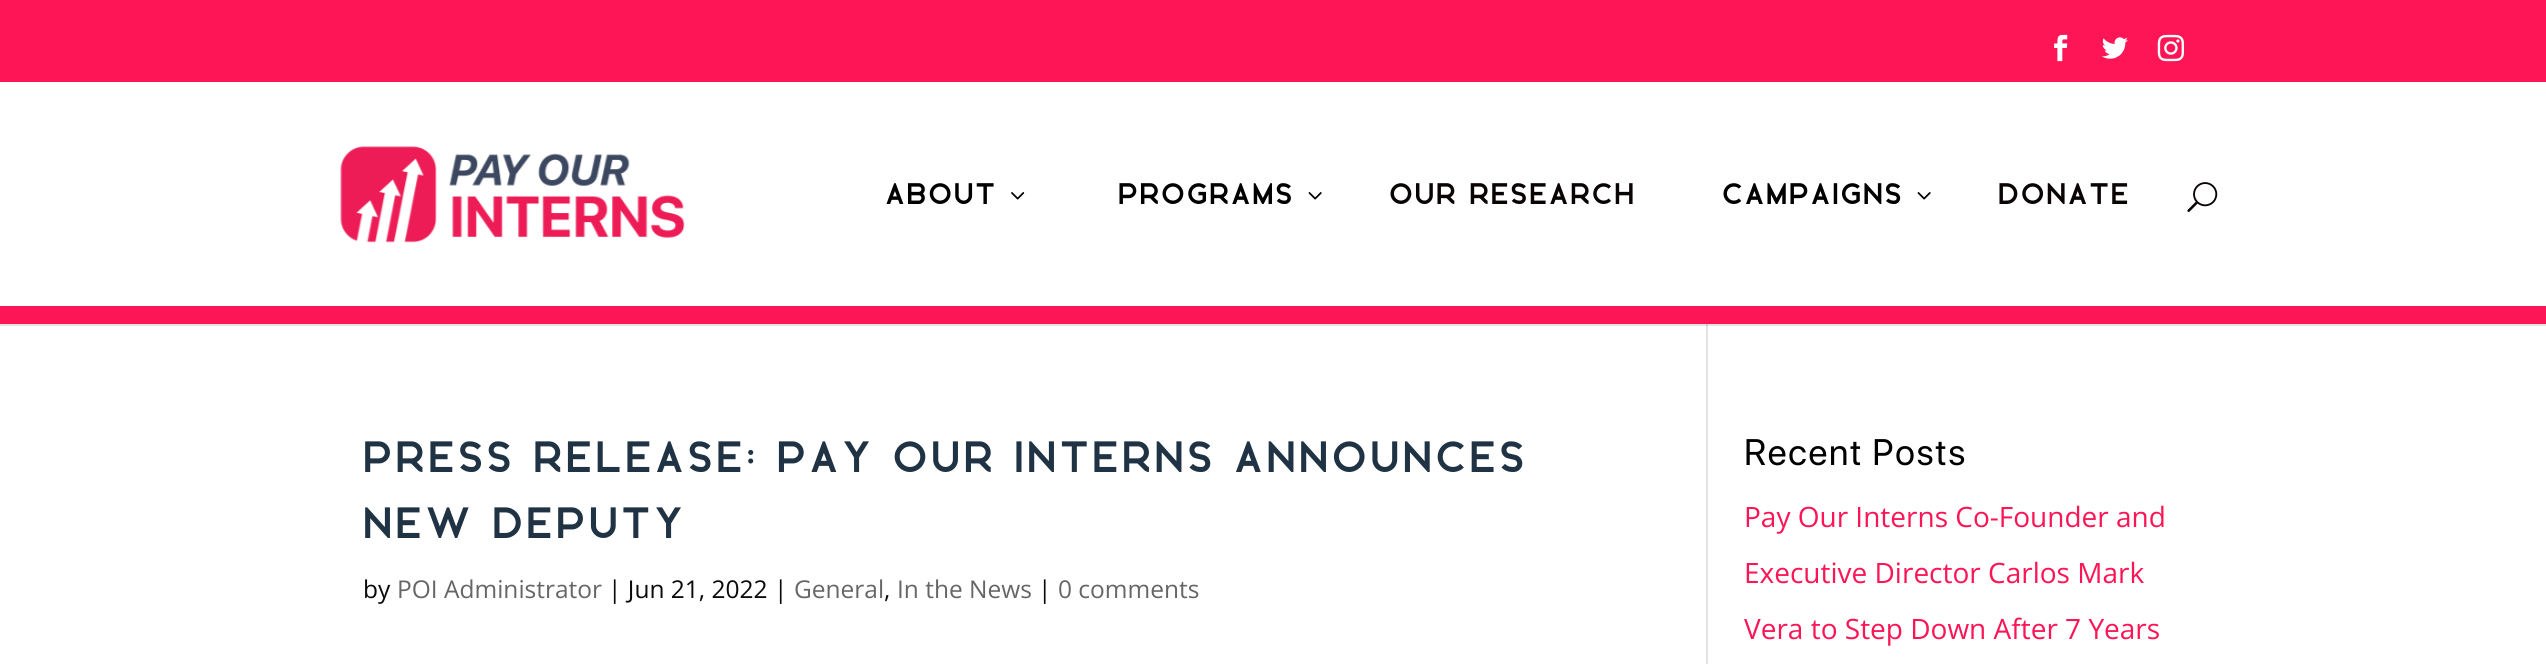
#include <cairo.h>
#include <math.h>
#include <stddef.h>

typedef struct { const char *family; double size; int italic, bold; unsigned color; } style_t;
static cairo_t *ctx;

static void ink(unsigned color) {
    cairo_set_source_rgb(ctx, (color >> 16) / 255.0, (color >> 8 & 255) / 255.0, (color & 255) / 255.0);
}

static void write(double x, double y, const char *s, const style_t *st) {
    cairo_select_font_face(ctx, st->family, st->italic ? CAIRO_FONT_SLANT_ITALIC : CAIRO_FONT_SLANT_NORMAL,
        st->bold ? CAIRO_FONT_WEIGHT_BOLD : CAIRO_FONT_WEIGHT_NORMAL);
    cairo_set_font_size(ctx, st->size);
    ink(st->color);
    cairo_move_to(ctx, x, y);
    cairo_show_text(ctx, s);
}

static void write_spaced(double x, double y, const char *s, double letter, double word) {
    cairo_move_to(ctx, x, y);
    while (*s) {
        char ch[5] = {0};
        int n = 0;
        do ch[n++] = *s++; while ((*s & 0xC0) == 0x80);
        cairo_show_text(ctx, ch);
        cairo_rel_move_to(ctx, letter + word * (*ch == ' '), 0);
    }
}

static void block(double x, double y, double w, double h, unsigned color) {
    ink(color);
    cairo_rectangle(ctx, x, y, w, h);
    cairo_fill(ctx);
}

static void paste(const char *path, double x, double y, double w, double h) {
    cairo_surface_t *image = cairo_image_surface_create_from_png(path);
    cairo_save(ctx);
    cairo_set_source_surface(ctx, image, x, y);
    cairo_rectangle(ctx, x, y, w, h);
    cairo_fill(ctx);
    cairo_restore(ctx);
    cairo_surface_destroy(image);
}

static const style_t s1 = {"Open Sans", 24.5, 0, 0, 0x0a0a0a};
static const style_t s2 = {"Open Sans", 24.5, 0, 0, 0x666666};
static const style_t s3 = {"Open Sans", 28, 0, 0, 0xfe1556};

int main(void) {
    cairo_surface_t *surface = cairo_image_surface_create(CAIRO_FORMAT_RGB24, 2546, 664);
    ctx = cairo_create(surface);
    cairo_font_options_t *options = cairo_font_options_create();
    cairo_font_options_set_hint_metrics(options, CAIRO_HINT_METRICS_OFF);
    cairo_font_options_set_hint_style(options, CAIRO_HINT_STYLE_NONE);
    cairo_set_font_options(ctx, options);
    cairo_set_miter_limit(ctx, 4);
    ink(0xffffff);
    cairo_paint(ctx);
    block(0, 324, 2546, 2, 0xe6e6e6);
    block(0, 0, 2546, 82, 0xfe1556);
    paste("pic1.png", 2054, 34, 14, 28);
    paste("pic2.png", 2102, 37, 26, 22);
    paste("pic3.png", 2157, 34, 27, 28);
    block(0, 306, 2546, 18, 0xfe1556);
    paste("pic4.png", 340, 146, 345, 97);
    cairo_select_font_face(ctx, "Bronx", CAIRO_FONT_SLANT_NORMAL, CAIRO_FONT_WEIGHT_NORMAL);
    cairo_set_font_size(ctx, 29.75);
    ink(0x000000);
    write_spaced(885, 204, "About", 1.75, 0);
    paste("pic5.png", 1011, 192, 14, 8);
    write_spaced(1118, 204, "Programs", 1.75, 0);
    paste("pic6.png", 1308, 192, 14, 8);
    ink(0x0a0303);
    write_spaced(1389, 204, "Our Research", 1.75, 0);
    ink(0x000000);
    write_spaced(1722, 204, "Campaigns", 1.75, 0);
    paste("pic6.png", 1917, 192, 14, 8);
    ink(0x0a0303);
    write_spaced(1998, 204, "Donate", 1.75, 0);
    paste("pic7.png", 2187, 182, 31, 30);
    block(1706, 324, 2, 340, 0xe2e2e2);
    block(1706, 324, 2, 2, 0xcbcbcb);
    cairo_set_font_size(ctx, 43.75);
    ink(0x203344);
    write_spaced(363, 472, "Press Release: PAY OUR INTERNS ANNOUNCES", 3.5, 0);
    write_spaced(363, 538, "NEW DEPUTY", 3.5, 0);
    write(363, 598, "by", &s1);
    write(397, 598, "POI Administrator", &s2);
    write(608, 598, "| Jun 21, 2022 |", &s1);
    write(794, 598, "General", &s2);
    write(884, 598, ",", &s1);
    write(897, 598, "In the News", &s2);
    write(1038, 598, "|", &s1);
    write(1058, 598, "0 comments", &s2);
    cairo_select_font_face(ctx, "SF Pro Display", CAIRO_FONT_SLANT_NORMAL, CAIRO_FONT_WEIGHT_NORMAL);
    cairo_set_font_size(ctx, 36.75);
    ink(0x000000);
    write_spaced(1744, 465, "Recent Posts", 1.75, 0);
    write(1744, 527, "Pay Our Interns Co-Founder and", &s3);
    write(1744, 583, "Executive Director Carlos Mark", &s3);
    write(1744, 639, "Vera to Step Down After 7 Years", &s3);
    cairo_surface_write_to_png(surface, "screenshot.png");
    cairo_font_options_destroy(options);
    cairo_destroy(ctx);
    cairo_surface_destroy(surface);
    return 0;
}
